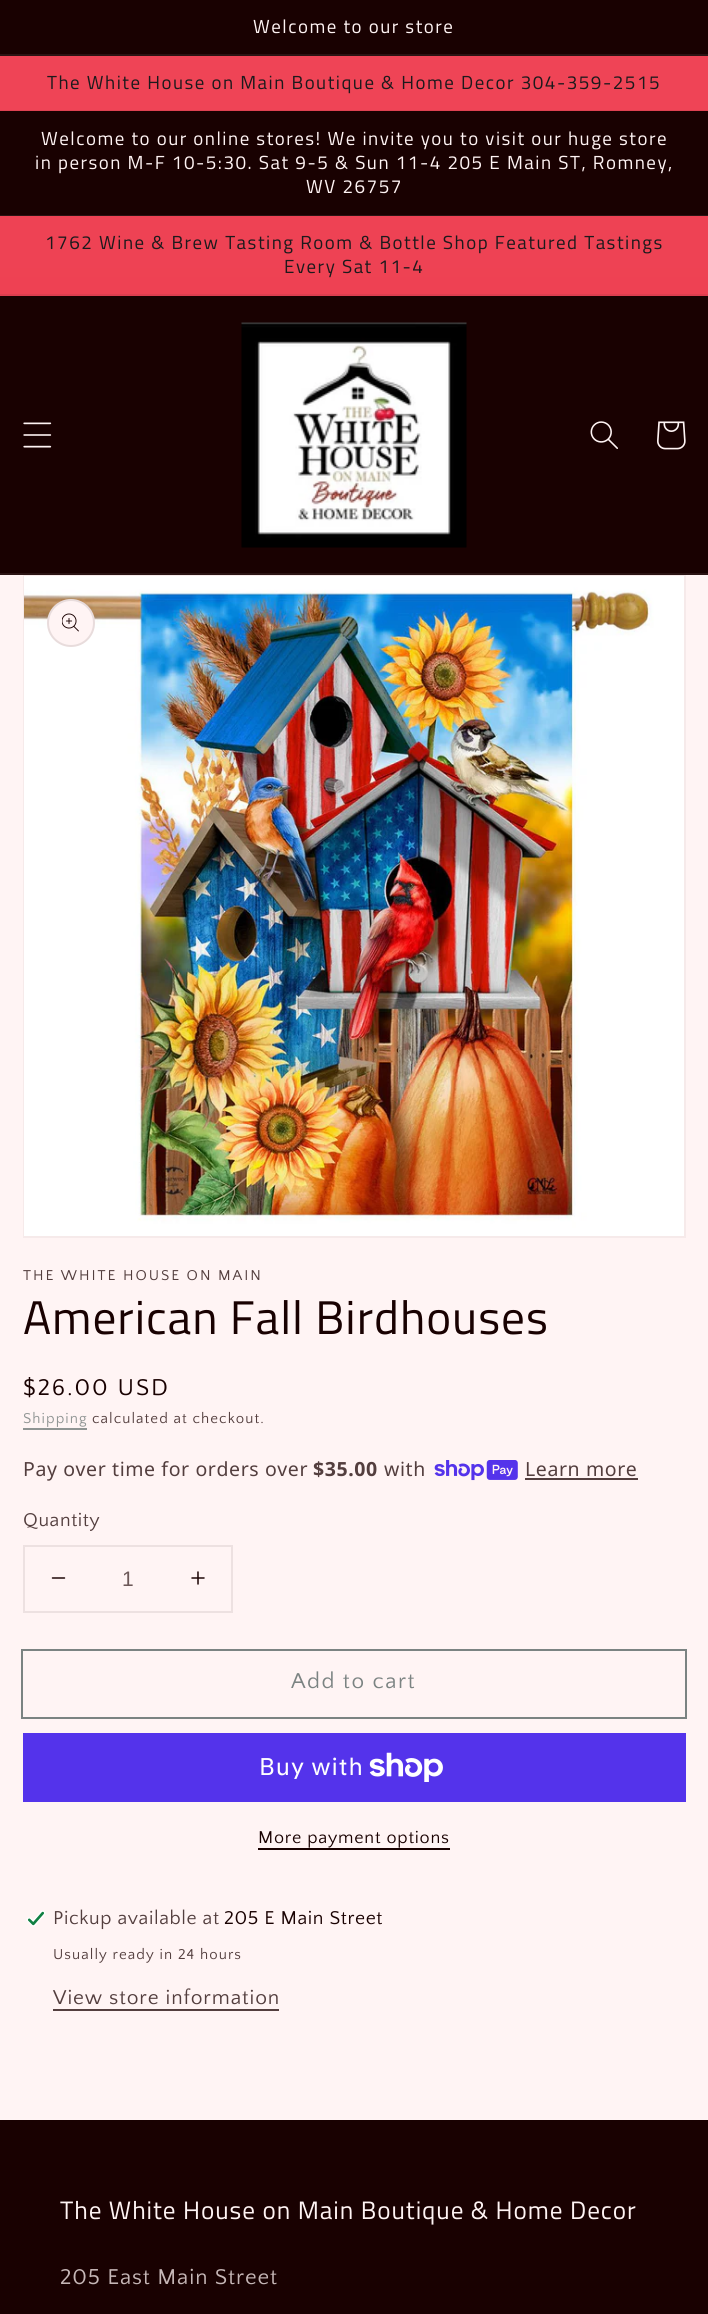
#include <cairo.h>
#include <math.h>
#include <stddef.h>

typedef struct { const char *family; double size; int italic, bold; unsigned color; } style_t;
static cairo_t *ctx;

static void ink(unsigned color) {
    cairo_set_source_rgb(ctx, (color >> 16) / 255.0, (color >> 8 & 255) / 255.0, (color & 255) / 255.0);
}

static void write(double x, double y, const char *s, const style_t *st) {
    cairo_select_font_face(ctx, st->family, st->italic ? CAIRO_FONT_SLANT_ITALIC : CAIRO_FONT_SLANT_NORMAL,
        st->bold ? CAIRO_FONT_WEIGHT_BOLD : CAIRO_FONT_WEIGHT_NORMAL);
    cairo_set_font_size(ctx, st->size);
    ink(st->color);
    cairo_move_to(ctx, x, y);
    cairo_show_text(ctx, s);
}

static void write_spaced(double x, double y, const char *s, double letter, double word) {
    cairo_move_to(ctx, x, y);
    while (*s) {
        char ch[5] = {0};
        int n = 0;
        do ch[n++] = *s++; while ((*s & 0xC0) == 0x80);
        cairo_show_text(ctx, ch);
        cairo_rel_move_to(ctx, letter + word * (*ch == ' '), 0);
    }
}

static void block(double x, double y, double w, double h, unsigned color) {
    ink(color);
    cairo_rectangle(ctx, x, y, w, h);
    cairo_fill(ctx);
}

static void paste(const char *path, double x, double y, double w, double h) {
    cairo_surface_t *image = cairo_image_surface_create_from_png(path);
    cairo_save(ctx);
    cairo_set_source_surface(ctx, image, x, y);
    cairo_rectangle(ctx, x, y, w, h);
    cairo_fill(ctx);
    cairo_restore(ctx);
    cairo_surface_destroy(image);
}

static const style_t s1 = {"Liberation Sans", 21, 0, 0, 0x6d5959};

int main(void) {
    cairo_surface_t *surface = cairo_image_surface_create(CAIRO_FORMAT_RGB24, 708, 2314);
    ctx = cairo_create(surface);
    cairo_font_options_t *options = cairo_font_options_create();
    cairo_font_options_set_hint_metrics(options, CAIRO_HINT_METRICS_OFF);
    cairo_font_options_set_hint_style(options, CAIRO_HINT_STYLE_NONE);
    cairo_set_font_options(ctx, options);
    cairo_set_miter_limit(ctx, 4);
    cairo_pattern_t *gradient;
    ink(0xfff4f4);
    cairo_paint(ctx);
    block(0, 0, 708, 54, 0x190101);
    block(0, 54, 708, 2, 0x2b1414);
    cairo_select_font_face(ctx, "Titillium Web", CAIRO_FONT_SLANT_NORMAL, CAIRO_FONT_WEIGHT_NORMAL);
    cairo_set_font_size(ctx, 18.9);
    ink(0xfff4f4);
    write_spaced(253, 33, "Welcome to our store", 1.5, 0);
    gradient = cairo_pattern_create_linear(354, 0, 354, 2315);
    cairo_pattern_add_color_stop_rgba(gradient, 0, 0.941, 0.271, 0.341, 1);
    cairo_pattern_add_color_stop_rgba(gradient, 1, 0.867, 0.153, 0.224, 1);
    cairo_set_source(ctx, gradient);
    cairo_pattern_destroy(gradient);
    cairo_rectangle(ctx, 0, 56, 708, 54);
    cairo_fill(ctx);
    gradient = cairo_pattern_create_linear(354, 0, 354, 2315);
    cairo_pattern_add_color_stop_rgba(gradient, 0, 0.875, 0.259, 0.322, 1);
    cairo_pattern_add_color_stop_rgba(gradient, 1, 0.808, 0.149, 0.216, 1);
    cairo_set_source(ctx, gradient);
    cairo_pattern_destroy(gradient);
    cairo_rectangle(ctx, 0, 110, 708, 1);
    cairo_fill(ctx);
    ink(0x1c1a1c);
    write_spaced(47, 89, "The White House on Main Boutique & Home Decor 304-359-2515", 1.5, 0);
    block(0, 111, 708, 104, 0x190101);
    block(0, 215, 708, 1, 0x2b1414);
    ink(0xfff4f4);
    write_spaced(41, 145, "Welcome to our online stores! We invite you to visit our huge store", 1.5, 0);
    write_spaced(35, 169, "in person M-F 10-5:30. Sat 9-5 & Sun 11-4 205 E Main ST, Romney,", 1.5, 0);
    write_spaced(306, 193, "WV 26757", 1.5, 0);
    gradient = cairo_pattern_create_linear(354, 0, 354, 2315);
    cairo_pattern_add_color_stop_rgba(gradient, 0, 0.941, 0.271, 0.341, 1);
    cairo_pattern_add_color_stop_rgba(gradient, 1, 0.867, 0.153, 0.224, 1);
    cairo_set_source(ctx, gradient);
    cairo_pattern_destroy(gradient);
    cairo_rectangle(ctx, 0, 216, 708, 78);
    cairo_fill(ctx);
    block(0, 294, 708, 2, 0xdd3e4f);
    ink(0x1c1a1c);
    write_spaced(45, 249, "1762 Wine & Brew Tasting Room & Bottle Shop Featured Tastings", 1.5, 0);
    write_spaced(284, 273, "Every Sat 11-4", 1.5, 0);
    block(0, 296, 708, 277, 0x190101);
    block(0, 573, 708, 2, 0x2b1414);
    paste("pic1.png", 23, 422, 29, 26);
    paste("pic2.png", 241, 322, 226, 226);
    paste("pic3.png", 590, 421, 28, 28);
    paste("pic4.png", 657, 421, 29, 29);
    cairo_rectangle(ctx, 24, 576, 661, 661);
    ink(0xf6eaea);
    cairo_stroke(ctx);
    paste("pic5.png", 24, 576, 660, 660);
    ink(0xfff4f4);
    cairo_arc(ctx, 71, 623, 24, 0, 2 * M_PI);
    cairo_fill(ctx);
    cairo_arc(ctx, 71, 623, 23, 0, 2 * M_PI);
    cairo_set_source_rgba(ctx, 0.098, 0.004, 0.004, 0.1);
    cairo_stroke(ctx);
    paste("pic6.png", 62, 613, 17, 19);
    cairo_select_font_face(ctx, "Quattrocento Sans", CAIRO_FONT_SLANT_NORMAL, CAIRO_FONT_WEIGHT_NORMAL);
    cairo_set_font_size(ctx, 15);
    ink(0x533e3e);
    write_spaced(23, 1280, "THE WHITE HOUSE ON MAIN", 1.95, 0);
    cairo_select_font_face(ctx, "Titillium Web", CAIRO_FONT_SLANT_NORMAL, CAIRO_FONT_WEIGHT_NORMAL);
    cairo_set_font_size(ctx, 47.25);
    ink(0x190101);
    write_spaced(23, 1334, "American Fall Birdhouses", 0.95, 0);
    cairo_select_font_face(ctx, "Quattrocento Sans", CAIRO_FONT_SLANT_NORMAL, CAIRO_FONT_WEIGHT_NORMAL);
    cairo_set_font_size(ctx, 24);
    write_spaced(23, 1395, "$26.00 USD", 1.95, 0);
    cairo_set_font_size(ctx, 15);
    ink(0x8f9493);
    write_spaced(23, 1423, "Shipping", 1.05, 0);
    block(23, 1428, 64, 2, 0x8f9493);
    ink(0x533e3e);
    write_spaced(92, 1423, "calculated at checkout.", 1.05, 0);
    cairo_select_font_face(ctx, "Noto Sans", CAIRO_FONT_SLANT_NORMAL, CAIRO_FONT_WEIGHT_NORMAL);
    cairo_set_font_size(ctx, 19.5);
    write_spaced(23, 1476, "Pay over time for orders over", 0.6, 0);
    cairo_select_font_face(ctx, "Noto Sans", CAIRO_FONT_SLANT_NORMAL, CAIRO_FONT_WEIGHT_BOLD);
    write_spaced(313, 1476, "$35.00", 0.6, 0);
    cairo_select_font_face(ctx, "Noto Sans", CAIRO_FONT_SLANT_NORMAL, CAIRO_FONT_WEIGHT_NORMAL);
    write_spaced(384, 1476, "with", 0.6, 0);
    paste("pic7.png", 434, 1460, 84, 21);
    write_spaced(525, 1476, "Learn more", 0.6, 0);
    block(525, 1478, 113, 2, 0x533e3e);
    cairo_select_font_face(ctx, "Quattrocento Sans", CAIRO_FONT_SLANT_NORMAL, CAIRO_FONT_WEIGHT_NORMAL);
    write_spaced(23, 1526, "Quantity", 0.6, 0);
    cairo_rectangle(ctx, 24, 1546, 208, 66);
    ink(0xede1e1);
    cairo_stroke(ctx);
    paste("pic8.png", 51, 1577, 15, 2);
    write(122, 1586, "1", &s1);
    paste("pic9.png", 191, 1571, 14, 14);
    cairo_rectangle(ctx, 22, 1650, 664, 68);
    ink(0x7b8382);
    cairo_stroke(ctx);
    cairo_select_font_face(ctx, "Quattrocento Sans", CAIRO_FONT_SLANT_NORMAL, CAIRO_FONT_WEIGHT_NORMAL);
    cairo_set_font_size(ctx, 22.5);
    write_spaced(291, 1688, "Add to cart", 1.5, 0);
    block(23, 1733, 663, 69, 0x5433eb);
    cairo_select_font_face(ctx, "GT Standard", CAIRO_FONT_SLANT_NORMAL, CAIRO_FONT_WEIGHT_NORMAL);
    cairo_set_font_size(ctx, 24);
    ink(0xffffff);
    write_spaced(259, 1775, "Buy with", 0.9, 0);
    paste("pic10.png", 369, 1752, 74, 30);
    cairo_select_font_face(ctx, "Quattrocento Sans", CAIRO_FONT_SLANT_NORMAL, CAIRO_FONT_WEIGHT_NORMAL);
    cairo_set_font_size(ctx, 18);
    ink(0x190101);
    write_spaced(258, 1843, "More payment options", 0.75, 0);
    block(258, 1848, 192, 2, 0x190101);
    paste("pic11.png", 26, 1910, 20, 17);
    cairo_set_font_size(ctx, 19.5);
    ink(0x533e3e);
    write_spaced(53, 1924, "Pickup available at", 0.6, 0);
    ink(0x190101);
    write_spaced(224, 1924, "205 E Main Street", 0.6, 0);
    cairo_set_font_size(ctx, 15);
    ink(0x533e3e);
    write_spaced(53, 1959, "Usually ready in 24 hours", 1.05, 0);
    cairo_set_font_size(ctx, 21);
    write_spaced(53, 2004, "View store information", 0.9, 0);
    block(53, 2009, 226, 2, 0x533e3e);
    block(0, 2120, 708, 194, 0x190101);
    cairo_select_font_face(ctx, "Titillium Web", CAIRO_FONT_SLANT_NORMAL, CAIRO_FONT_WEIGHT_NORMAL);
    cairo_set_font_size(ctx, 25.2);
    ink(0xfff4f4);
    write_spaced(60, 2219, "The White House on Main Boutique & Home Decor", 0.95, 0);
    cairo_select_font_face(ctx, "Quattrocento Sans", CAIRO_FONT_SLANT_NORMAL, CAIRO_FONT_WEIGHT_NORMAL);
    cairo_set_font_size(ctx, 22.5);
    ink(0xc6b7b7);
    write_spaced(60, 2284, "205 East Main Street", 0.9, 0);
    cairo_surface_write_to_png(surface, "screenshot.png");
    cairo_font_options_destroy(options);
    cairo_destroy(ctx);
    cairo_surface_destroy(surface);
    return 0;
}
